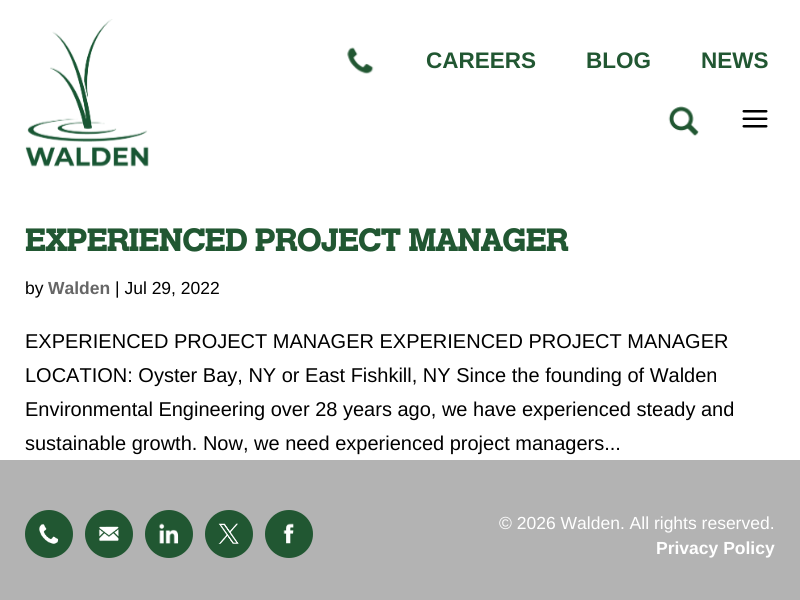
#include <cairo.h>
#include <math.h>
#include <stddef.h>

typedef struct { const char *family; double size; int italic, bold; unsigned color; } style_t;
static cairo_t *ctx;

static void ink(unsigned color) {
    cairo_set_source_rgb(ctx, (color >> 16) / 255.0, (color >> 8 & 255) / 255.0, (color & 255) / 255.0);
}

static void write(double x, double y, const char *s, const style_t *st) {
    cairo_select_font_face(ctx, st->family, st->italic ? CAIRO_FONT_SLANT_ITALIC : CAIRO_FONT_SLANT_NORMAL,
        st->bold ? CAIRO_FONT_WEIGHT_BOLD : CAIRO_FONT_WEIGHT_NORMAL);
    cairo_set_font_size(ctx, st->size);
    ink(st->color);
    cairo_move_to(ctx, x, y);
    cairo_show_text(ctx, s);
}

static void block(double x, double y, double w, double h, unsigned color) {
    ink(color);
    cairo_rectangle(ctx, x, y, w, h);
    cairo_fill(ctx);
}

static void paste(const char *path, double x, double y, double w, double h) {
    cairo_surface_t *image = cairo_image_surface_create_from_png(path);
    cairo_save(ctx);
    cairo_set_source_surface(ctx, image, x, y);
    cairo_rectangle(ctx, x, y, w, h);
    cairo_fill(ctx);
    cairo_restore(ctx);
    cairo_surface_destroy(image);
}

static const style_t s1 = {"Liberation Sans", 22.5, 0, 1, 0x215732};
static const style_t s2 = {"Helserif", 32.5, 0, 1, 0x215732};
static const style_t s3 = {"Liberation Sans", 17.5, 0, 0, 0x000000};
static const style_t s4 = {"Liberation Sans", 17.5, 0, 1, 0x666666};
static const style_t s5 = {"Liberation Sans", 20, 0, 0, 0x000000};
static const style_t s6 = {"Liberation Sans", 17.5, 0, 0, 0xffffff};
static const style_t s7 = {"Liberation Sans", 17.5, 0, 1, 0xffffff};

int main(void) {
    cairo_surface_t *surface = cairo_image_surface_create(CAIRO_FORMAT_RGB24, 800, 600);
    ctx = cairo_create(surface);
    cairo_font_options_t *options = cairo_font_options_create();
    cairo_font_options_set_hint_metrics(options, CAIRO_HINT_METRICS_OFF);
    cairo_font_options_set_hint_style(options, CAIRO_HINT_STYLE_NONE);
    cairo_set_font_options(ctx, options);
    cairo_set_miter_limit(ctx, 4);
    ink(0xffffff);
    cairo_paint(ctx);
    paste("pic1.png", 25, 19, 124, 148);
    paste("pic2.png", 668, 106, 31, 30);
    paste("pic3.png", 742, 110, 26, 18);
    paste("pic4.png", 347, 47, 27, 27);
    write(426, 68, "CAREERS", &s1);
    write(586, 68, "BLOG", &s1);
    write(701, 68, "NEWS", &s1);
    write(25, 251, "EXPERIENCED PROJECT MANAGER", &s2);
    write(25, 294, "by", &s3);
    write(48, 294, "Walden", &s4);
    write(115, 294, "| Jul 29, 2022", &s3);
    write(25, 348, "EXPERIENCED PROJECT MANAGER EXPERIENCED PROJECT MANAGER", &s5);
    write(25, 382, "LOCATION: Oyster Bay, NY or East Fishkill, NY Since the founding of Walden", &s5);
    write(25, 416, "Environmental Engineering over 28 years ago, we have experienced steady and", &s5);
    write(25, 450, "sustainable growth. Now, we need experienced project managers...", &s5);
    block(0, 460, 800, 140, 0xb3b3b3);
    ink(0x215732);
    cairo_new_path(ctx);
    cairo_arc(ctx, 49, 534, 24, 0, 2 * M_PI);
    cairo_fill(ctx);
    paste("pic5.png", 39, 524, 20, 20);
    cairo_arc(ctx, 109, 534, 24, 0, 2 * M_PI);
    cairo_fill(ctx);
    paste("pic6.png", 98, 526, 21, 16);
    cairo_arc(ctx, 169, 534, 24, 0, 2 * M_PI);
    cairo_fill(ctx);
    paste("pic7.png", 159, 523, 20, 21);
    cairo_arc(ctx, 229, 534, 24, 0, 2 * M_PI);
    cairo_fill(ctx);
    paste("pic8.png", 218, 523, 21, 21);
    cairo_arc(ctx, 289, 534, 24, 0, 2 * M_PI);
    cairo_fill(ctx);
    paste("pic9.png", 283, 523, 11, 21);
    write(499, 529, "© 2026 Walden. All rights reserved.", &s6);
    write(656, 554, "Privacy Policy", &s7);
    cairo_surface_write_to_png(surface, "screenshot.png");
    cairo_font_options_destroy(options);
    cairo_destroy(ctx);
    cairo_surface_destroy(surface);
    return 0;
}
